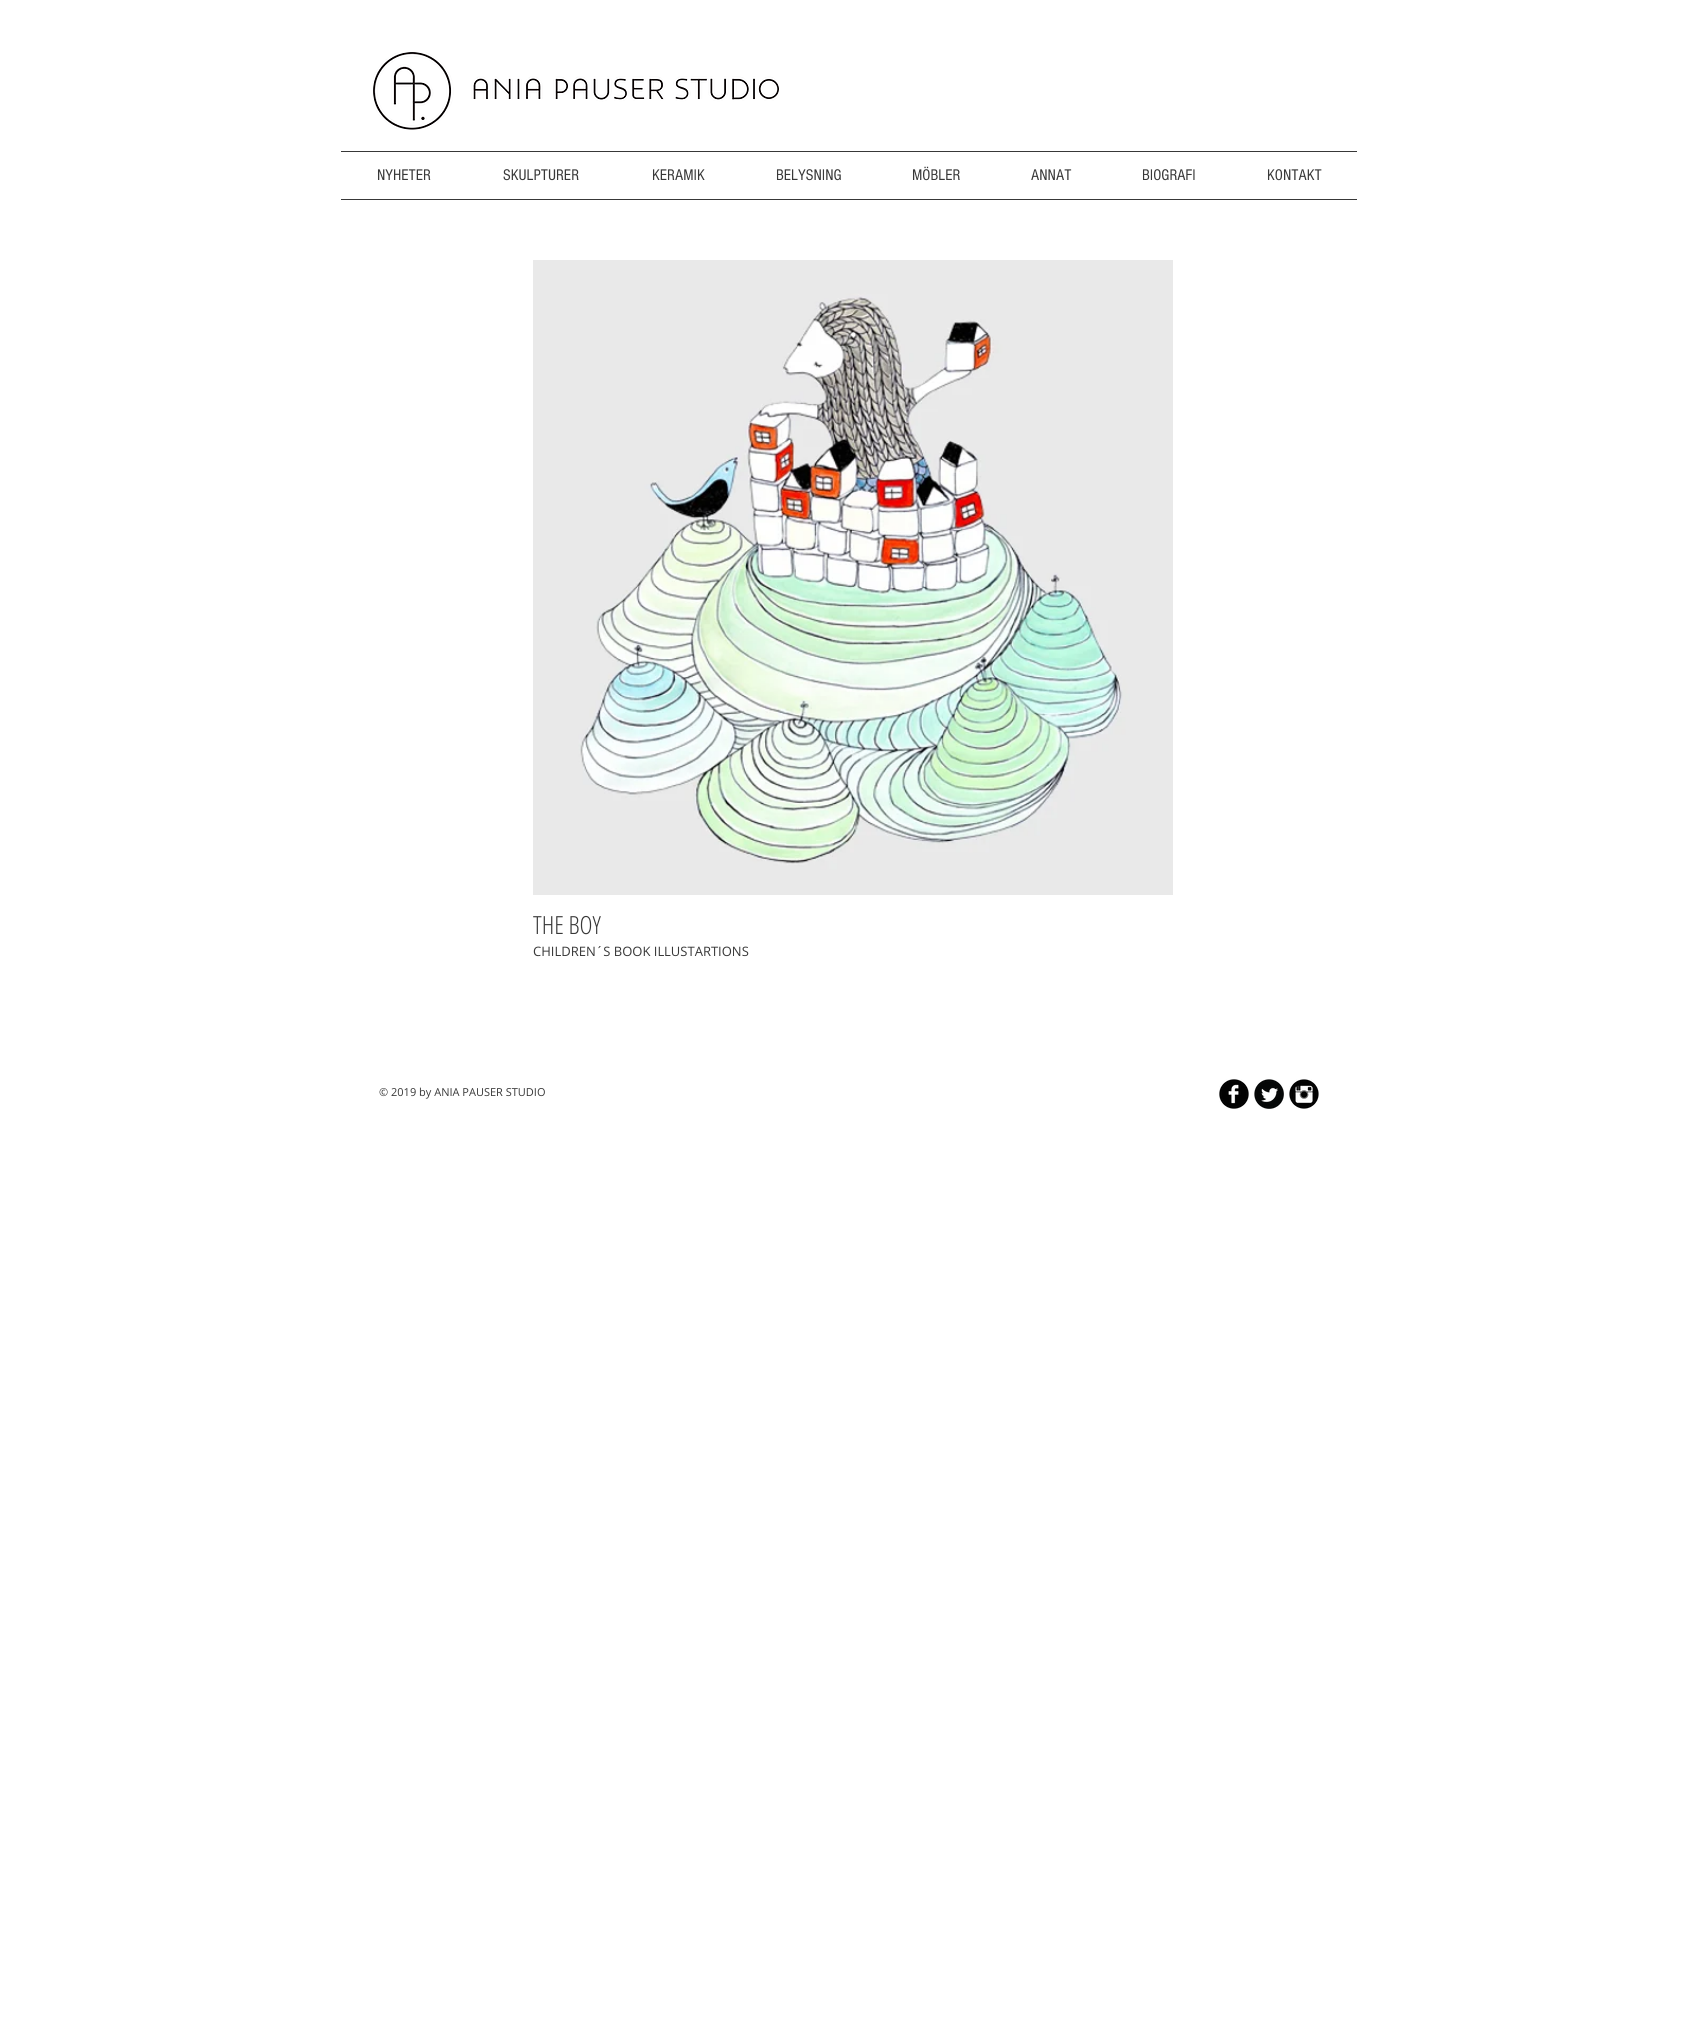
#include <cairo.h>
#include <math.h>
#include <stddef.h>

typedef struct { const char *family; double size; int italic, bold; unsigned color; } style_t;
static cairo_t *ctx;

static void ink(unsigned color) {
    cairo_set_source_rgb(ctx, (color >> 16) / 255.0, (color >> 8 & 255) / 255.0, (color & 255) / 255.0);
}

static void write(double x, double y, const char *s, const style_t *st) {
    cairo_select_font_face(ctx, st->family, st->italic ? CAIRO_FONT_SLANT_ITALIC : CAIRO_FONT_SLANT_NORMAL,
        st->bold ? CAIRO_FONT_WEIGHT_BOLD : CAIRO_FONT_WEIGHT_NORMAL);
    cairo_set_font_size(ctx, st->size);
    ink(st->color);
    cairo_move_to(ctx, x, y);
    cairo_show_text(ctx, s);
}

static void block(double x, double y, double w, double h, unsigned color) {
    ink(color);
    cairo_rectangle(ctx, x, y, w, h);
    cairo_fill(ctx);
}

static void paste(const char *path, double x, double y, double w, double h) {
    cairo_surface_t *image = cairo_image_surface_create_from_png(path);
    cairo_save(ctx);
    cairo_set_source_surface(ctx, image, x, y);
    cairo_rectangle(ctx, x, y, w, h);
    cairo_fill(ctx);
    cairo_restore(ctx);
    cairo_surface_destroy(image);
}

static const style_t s1 = {"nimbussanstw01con", 16, 0, 0, 0x383838};
static const style_t s2 = {"Open Sans Condensed Light", 25, 0, 0, 0x383838};
static const style_t s3 = {"Open Sans", 13, 0, 0, 0x383838};
static const style_t s4 = {"Open Sans", 11, 0, 0, 0x383838};

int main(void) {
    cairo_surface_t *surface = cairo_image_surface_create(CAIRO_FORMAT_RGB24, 1701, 2025);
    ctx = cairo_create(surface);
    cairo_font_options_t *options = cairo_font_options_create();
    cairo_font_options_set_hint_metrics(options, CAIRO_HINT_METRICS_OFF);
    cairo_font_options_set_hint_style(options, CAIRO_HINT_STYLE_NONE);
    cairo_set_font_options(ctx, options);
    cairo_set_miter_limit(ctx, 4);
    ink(0xffffff);
    cairo_paint(ctx);
    paste("pic1.png", 373, 52, 406, 78);
    block(341, 151, 1016, 1, 0x383838);
    block(341, 199, 1016, 1, 0x383838);
    write(377, 180, "NYHETER", &s1);
    write(503, 180, "SKULPTURER", &s1);
    write(652, 180, "KERAMIK", &s1);
    write(776, 180, "BELYSNING", &s1);
    write(912, 180, "MÖBLER", &s1);
    write(1031, 180, "ANNAT", &s1);
    write(1142, 180, "BIOGRAFI", &s1);
    write(1267, 180, "KONTAKT", &s1);
    paste("pic2.png", 533, 260, 640, 635);
    write(533, 934, "THE BOY", &s2);
    write(533, 956, "CHILDREN´S BOOK ILLUSTARTIONS", &s3);
    write(379, 1096, "© 2019 by ANIA PAUSER STUDIO", &s4);
    paste("pic3.png", 1219, 1079, 30, 30);
    paste("pic4.png", 1254, 1079, 30, 30);
    paste("pic5.png", 1289, 1079, 30, 30);
    cairo_surface_write_to_png(surface, "screenshot.png");
    cairo_font_options_destroy(options);
    cairo_destroy(ctx);
    cairo_surface_destroy(surface);
    return 0;
}
